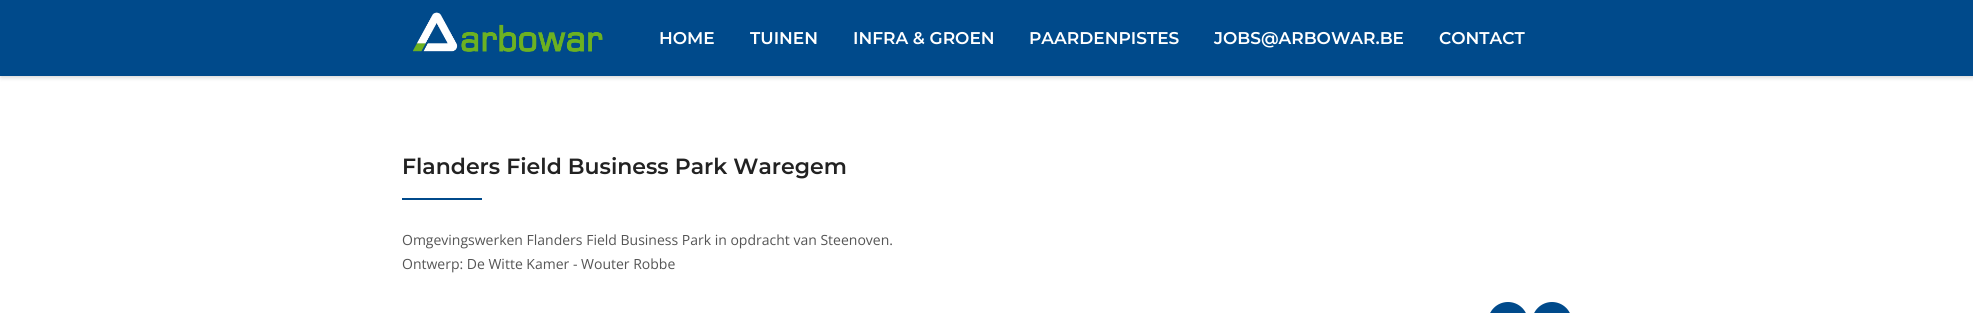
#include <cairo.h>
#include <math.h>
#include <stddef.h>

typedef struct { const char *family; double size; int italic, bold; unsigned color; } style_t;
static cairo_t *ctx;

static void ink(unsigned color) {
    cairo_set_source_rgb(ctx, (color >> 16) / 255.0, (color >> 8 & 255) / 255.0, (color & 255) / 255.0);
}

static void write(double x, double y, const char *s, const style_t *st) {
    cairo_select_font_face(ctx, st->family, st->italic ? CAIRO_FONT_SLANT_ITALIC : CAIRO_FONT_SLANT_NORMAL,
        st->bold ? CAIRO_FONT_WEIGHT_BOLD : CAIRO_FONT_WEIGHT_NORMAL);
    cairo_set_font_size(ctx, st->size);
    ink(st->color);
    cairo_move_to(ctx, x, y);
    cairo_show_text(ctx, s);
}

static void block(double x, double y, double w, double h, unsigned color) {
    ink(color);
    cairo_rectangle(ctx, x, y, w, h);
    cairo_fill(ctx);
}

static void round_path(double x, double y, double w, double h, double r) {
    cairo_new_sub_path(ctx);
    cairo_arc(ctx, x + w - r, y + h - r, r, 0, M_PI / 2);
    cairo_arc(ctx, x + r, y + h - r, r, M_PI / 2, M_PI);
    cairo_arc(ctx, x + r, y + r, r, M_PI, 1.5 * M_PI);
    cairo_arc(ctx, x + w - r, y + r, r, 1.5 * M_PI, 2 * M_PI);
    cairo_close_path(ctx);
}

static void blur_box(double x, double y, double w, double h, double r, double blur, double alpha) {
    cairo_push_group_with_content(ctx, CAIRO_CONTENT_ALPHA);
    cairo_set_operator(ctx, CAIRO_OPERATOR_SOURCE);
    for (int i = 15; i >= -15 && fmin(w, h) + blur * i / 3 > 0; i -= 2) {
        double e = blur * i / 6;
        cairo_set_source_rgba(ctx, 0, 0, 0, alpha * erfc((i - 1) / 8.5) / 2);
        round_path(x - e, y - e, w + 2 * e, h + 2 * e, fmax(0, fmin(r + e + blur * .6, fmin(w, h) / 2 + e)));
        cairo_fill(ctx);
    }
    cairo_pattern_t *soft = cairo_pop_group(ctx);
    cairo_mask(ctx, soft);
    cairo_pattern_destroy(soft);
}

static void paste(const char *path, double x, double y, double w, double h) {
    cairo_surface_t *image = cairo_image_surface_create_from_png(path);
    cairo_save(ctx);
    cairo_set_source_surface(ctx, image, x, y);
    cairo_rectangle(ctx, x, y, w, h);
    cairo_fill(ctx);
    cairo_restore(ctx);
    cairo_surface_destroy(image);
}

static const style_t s1 = {"Montserrat SemiBold", 17, 0, 0, 0xffffff};
static const style_t s2 = {"Montserrat SemiBold", 22, 0, 0, 0x222222};
static const style_t s3 = {"Open Sans", 14, 0, 0, 0x555555};

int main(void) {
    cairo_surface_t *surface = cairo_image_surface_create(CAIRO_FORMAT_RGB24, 1973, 313);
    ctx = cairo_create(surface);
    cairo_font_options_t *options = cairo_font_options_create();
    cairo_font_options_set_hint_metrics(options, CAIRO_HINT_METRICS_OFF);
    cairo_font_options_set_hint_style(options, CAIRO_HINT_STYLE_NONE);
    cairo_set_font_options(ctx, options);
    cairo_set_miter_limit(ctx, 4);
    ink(0xffffff);
    cairo_paint(ctx);
    ink(0x000000);
    blur_box(1, 1, 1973, 76, 0, 2.5, 0.2);
    block(0, 0, 1973, 76, 0x004a8b);
    paste("pic1.png", 413, 12, 190, 40);
    write(659, 44, "HOME", &s1);
    write(750, 44, "TUINEN", &s1);
    write(853, 44, "INFRA & GROEN", &s1);
    write(1029, 44, "PAARDENPISTES", &s1);
    write(1214, 44, "JOBS@ARBOWAR.BE", &s1);
    write(1439, 44, "CONTACT", &s1);
    write(402, 174, "Flanders Field Business Park Waregem", &s2);
    block(402, 198, 80, 2, 0x004a8b);
    write(402, 245, "Omgevingswerken Flanders Field Business Park in opdracht van Steenoven.", &s3);
    write(402, 269, "Ontwerp: De Witte Kamer - Wouter Robbe", &s3);
    ink(0x004a8b);
    round_path(1488, 302, 40, 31, 20);
    cairo_fill(ctx);
    round_path(1532, 302, 40, 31, 20);
    cairo_fill(ctx);
    cairo_surface_write_to_png(surface, "screenshot.png");
    cairo_font_options_destroy(options);
    cairo_destroy(ctx);
    cairo_surface_destroy(surface);
    return 0;
}
